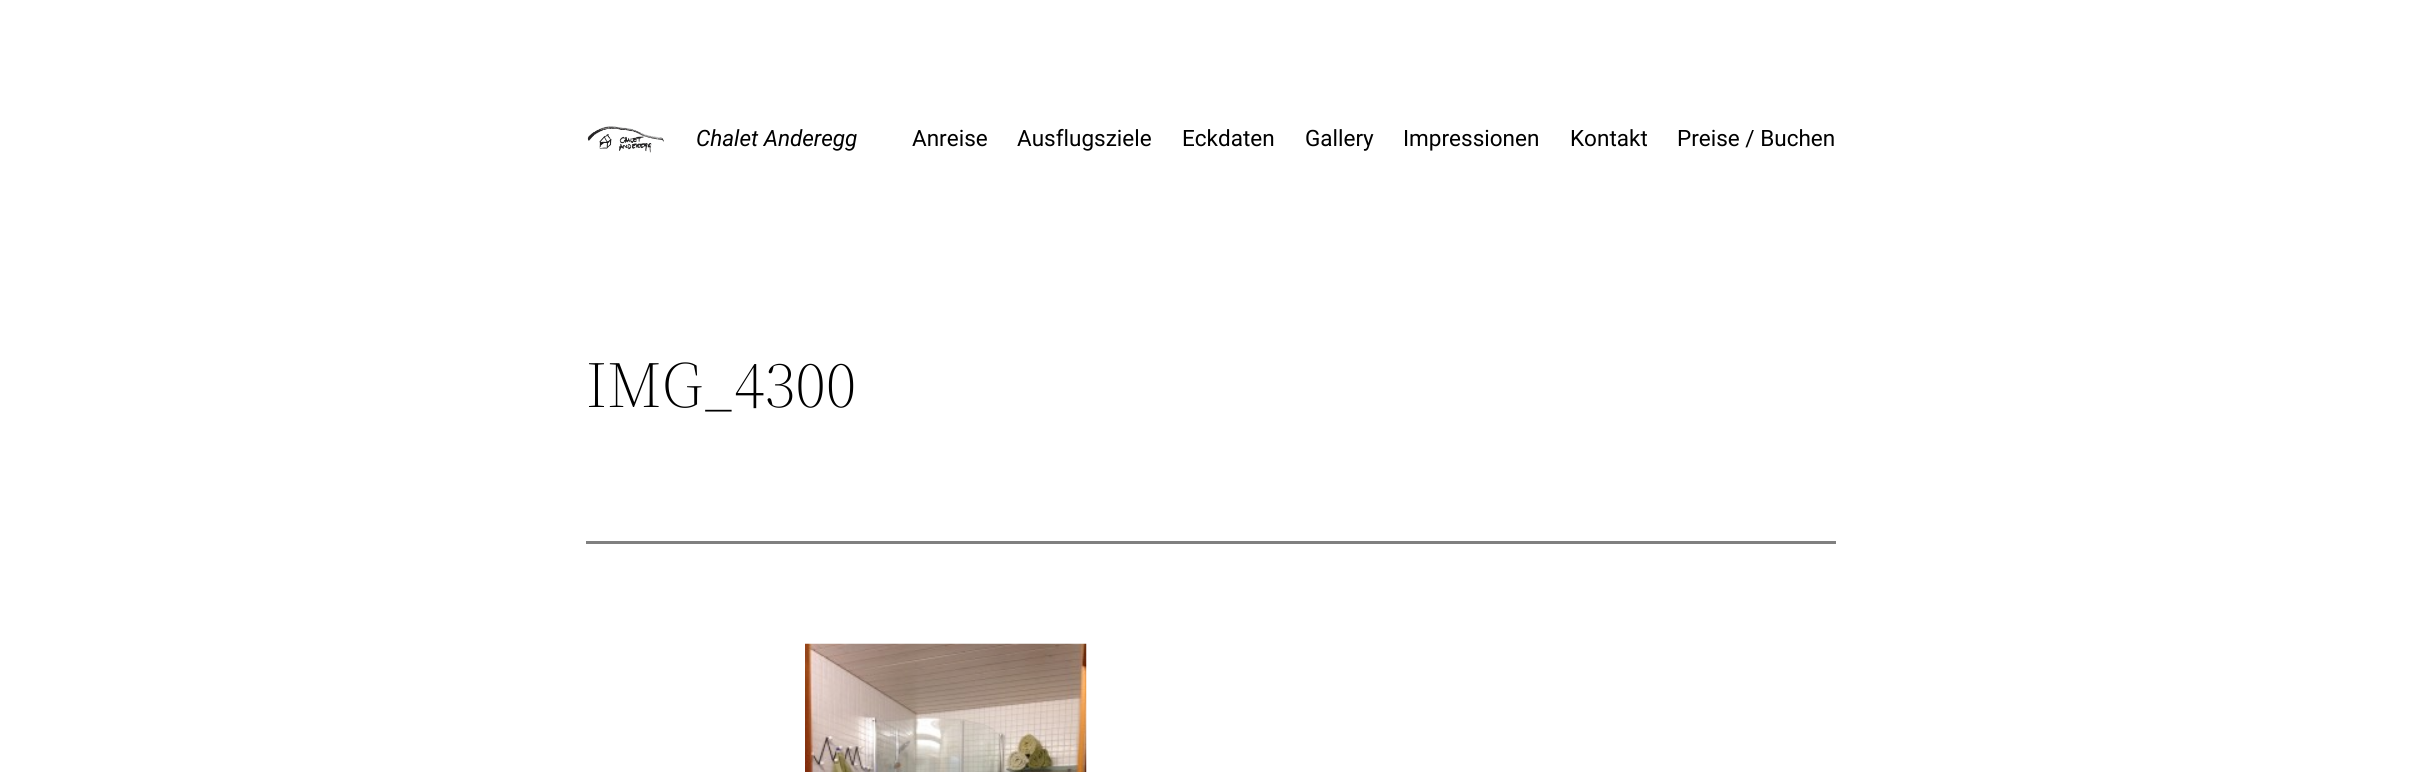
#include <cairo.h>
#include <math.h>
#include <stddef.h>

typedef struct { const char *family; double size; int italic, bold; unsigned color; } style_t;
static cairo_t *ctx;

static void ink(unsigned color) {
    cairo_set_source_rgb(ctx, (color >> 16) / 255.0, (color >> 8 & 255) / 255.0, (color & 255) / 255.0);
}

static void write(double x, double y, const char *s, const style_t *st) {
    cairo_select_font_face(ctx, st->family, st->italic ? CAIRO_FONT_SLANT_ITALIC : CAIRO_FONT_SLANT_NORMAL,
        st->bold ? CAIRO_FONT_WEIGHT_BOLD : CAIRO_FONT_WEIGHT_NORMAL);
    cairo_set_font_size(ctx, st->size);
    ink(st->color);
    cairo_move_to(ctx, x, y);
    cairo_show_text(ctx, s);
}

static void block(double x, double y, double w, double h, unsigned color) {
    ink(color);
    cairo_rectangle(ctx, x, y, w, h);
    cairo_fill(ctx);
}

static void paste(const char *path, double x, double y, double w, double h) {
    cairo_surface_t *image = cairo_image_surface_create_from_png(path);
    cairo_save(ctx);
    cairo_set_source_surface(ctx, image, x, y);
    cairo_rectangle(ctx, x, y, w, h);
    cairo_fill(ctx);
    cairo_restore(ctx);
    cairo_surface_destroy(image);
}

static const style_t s1 = {"Roboto", 22.5, 1, 0, 0x000000};
static const style_t s2 = {"Roboto", 22.5, 0, 0, 0x000000};
static const style_t s3 = {"Source Serif 4 Light", 65, 0, 0, 0x000000};

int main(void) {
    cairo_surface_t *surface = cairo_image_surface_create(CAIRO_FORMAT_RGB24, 2421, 772);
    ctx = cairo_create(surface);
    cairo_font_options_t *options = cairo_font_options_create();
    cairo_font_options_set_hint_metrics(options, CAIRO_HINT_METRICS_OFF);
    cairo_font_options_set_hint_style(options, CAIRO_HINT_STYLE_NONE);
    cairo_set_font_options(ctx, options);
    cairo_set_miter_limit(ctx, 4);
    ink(0xffffff);
    cairo_paint(ctx);
    paste("pic1.png", 587, 126, 77, 27);
    write(696, 146, "Chalet Anderegg", &s1);
    write(912, 146, "Anreise", &s2);
    write(1017, 146, "Ausflugsziele", &s2);
    write(1182, 146, "Eckdaten", &s2);
    write(1305, 146, "Gallery", &s2);
    write(1403, 146, "Impressionen", &s2);
    write(1570, 146, "Kontakt", &s2);
    write(1677, 146, "Preise / Buchen", &s2);
    write(586, 407, "IMG_4300", &s3);
    block(586, 541, 1250, 3, 0x808080);
    paste("pic2.png", 805, 643, 282, 129);
    cairo_surface_write_to_png(surface, "screenshot.png");
    cairo_font_options_destroy(options);
    cairo_destroy(ctx);
    cairo_surface_destroy(surface);
    return 0;
}
